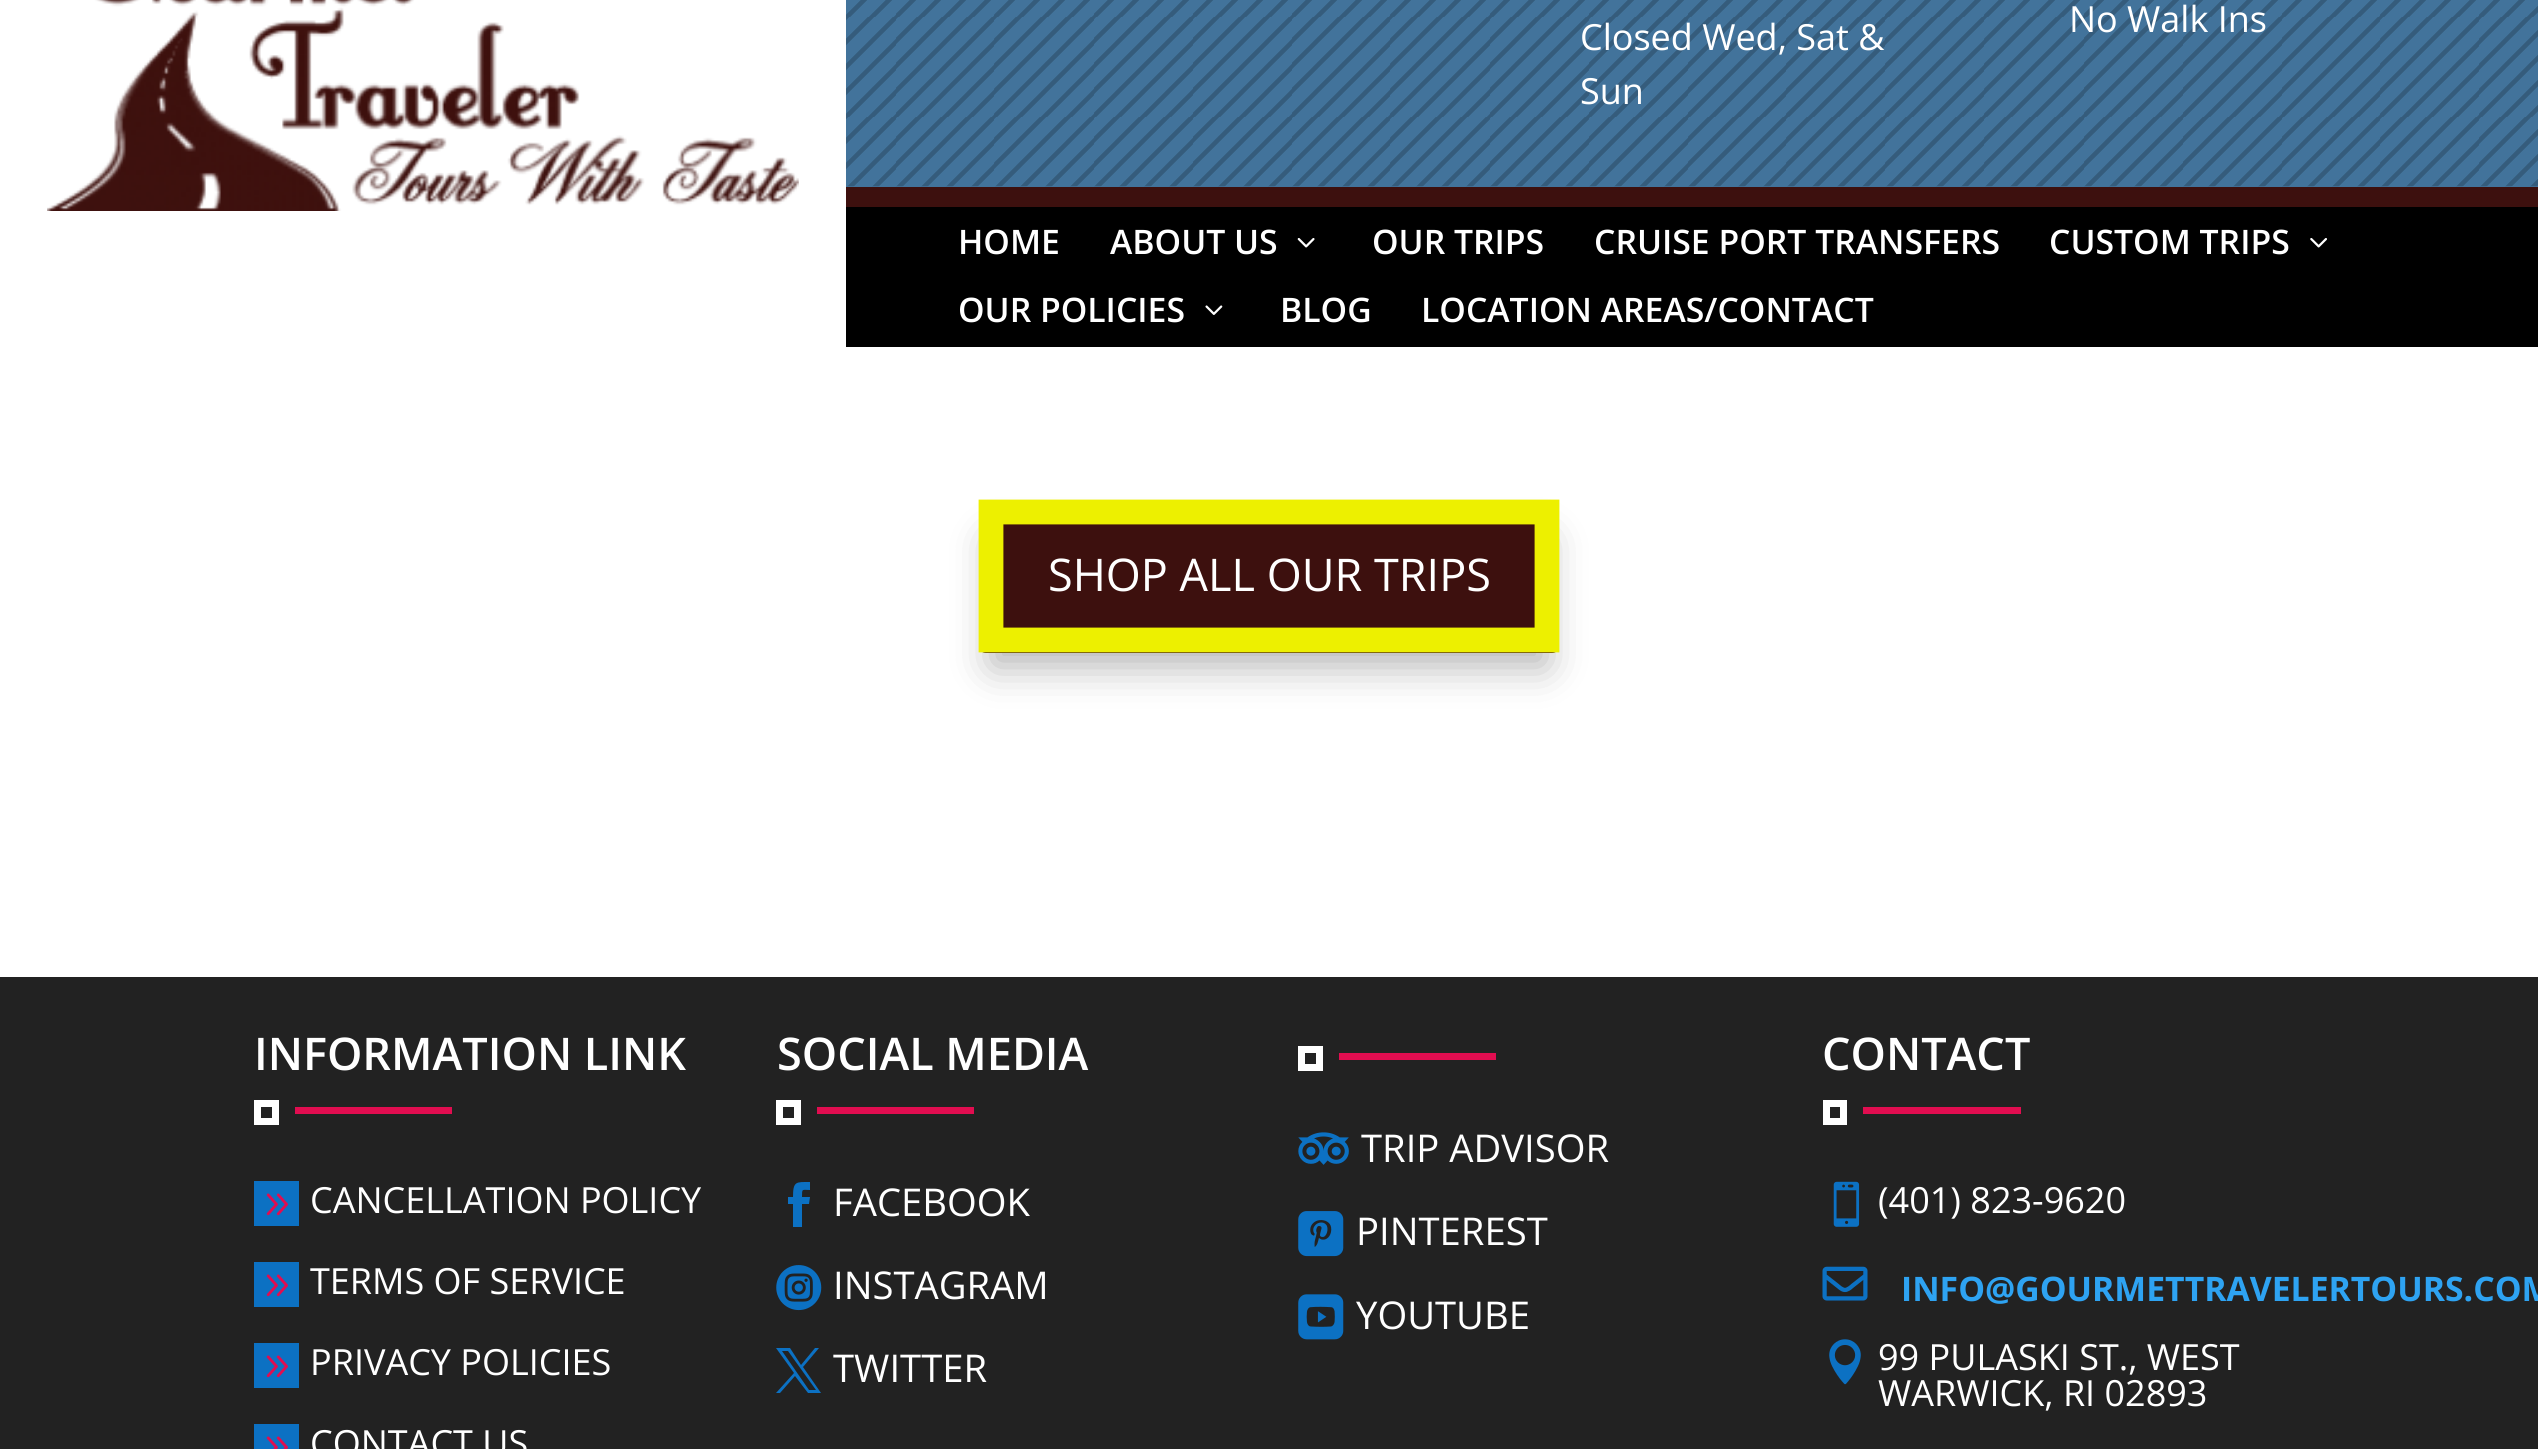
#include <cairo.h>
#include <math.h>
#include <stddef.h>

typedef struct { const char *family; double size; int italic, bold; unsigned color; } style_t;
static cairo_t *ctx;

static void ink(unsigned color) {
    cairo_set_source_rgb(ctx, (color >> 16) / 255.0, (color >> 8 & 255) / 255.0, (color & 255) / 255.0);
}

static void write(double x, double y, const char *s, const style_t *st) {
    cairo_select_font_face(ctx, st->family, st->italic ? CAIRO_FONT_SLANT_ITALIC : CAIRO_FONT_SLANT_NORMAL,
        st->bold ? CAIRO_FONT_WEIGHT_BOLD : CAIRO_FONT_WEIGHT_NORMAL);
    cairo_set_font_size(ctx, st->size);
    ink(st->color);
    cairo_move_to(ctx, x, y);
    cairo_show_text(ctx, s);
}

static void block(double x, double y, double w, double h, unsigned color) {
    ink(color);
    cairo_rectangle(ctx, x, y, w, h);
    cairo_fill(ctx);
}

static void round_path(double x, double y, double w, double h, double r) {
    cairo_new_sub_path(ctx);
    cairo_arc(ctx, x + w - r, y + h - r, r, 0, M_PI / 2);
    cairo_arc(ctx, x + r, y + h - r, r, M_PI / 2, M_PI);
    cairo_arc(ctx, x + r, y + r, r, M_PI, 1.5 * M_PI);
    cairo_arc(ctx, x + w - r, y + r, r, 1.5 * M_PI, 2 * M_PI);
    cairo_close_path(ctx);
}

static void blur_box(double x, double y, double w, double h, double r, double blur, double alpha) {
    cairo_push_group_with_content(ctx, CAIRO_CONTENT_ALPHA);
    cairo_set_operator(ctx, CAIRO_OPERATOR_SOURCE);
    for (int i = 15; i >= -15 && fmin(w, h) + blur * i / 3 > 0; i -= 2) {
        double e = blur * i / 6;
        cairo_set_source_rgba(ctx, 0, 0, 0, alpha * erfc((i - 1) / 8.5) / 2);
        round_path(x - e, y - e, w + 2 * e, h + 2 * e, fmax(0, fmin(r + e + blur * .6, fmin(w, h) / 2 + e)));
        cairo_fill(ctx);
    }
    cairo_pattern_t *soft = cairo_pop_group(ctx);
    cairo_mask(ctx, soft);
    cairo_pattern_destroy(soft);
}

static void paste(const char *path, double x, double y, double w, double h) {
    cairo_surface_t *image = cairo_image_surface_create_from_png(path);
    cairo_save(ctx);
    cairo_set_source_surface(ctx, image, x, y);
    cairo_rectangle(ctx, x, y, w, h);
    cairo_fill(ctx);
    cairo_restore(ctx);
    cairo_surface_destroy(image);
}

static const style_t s1 = {"Open Sans", 36, 0, 0, 0xffffff};
static const style_t s2 = {"Open Sans SemiBold", 33.75, 0, 0, 0xffffff};
static const style_t s3 = {"Open Sans", 45, 0, 0, 0xffffff};
static const style_t s4 = {"Open Sans SemiBold", 45, 0, 0, 0xffffff};
static const style_t s5 = {"Open Sans", 38.25, 0, 0, 0xffffff};
static const style_t s6 = {"Open Sans", 33.75, 0, 1, 0x2ea3f2};

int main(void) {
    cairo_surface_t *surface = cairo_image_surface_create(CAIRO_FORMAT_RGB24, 2538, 1449);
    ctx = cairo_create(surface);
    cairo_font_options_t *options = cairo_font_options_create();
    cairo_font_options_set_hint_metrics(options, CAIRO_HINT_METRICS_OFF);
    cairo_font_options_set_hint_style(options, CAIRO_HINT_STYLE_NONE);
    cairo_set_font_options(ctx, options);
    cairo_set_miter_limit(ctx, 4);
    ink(0xffffff);
    cairo_paint(ctx);
    paste("pic1.png", 47, 0, 752, 211);
    block(846, 0, 1692, 187, 0x42739b);
    paste("pic2.png", 846, 0, 1692, 187);
    write(2069, 32, "No Walk Ins", &s1);
    write(1580, 50, "Closed Wed, Sat &", &s1);
    write(1580, 104, "Sun", &s1);
    block(846, 187, 1692, 20, 0x3d100e);
    block(846, 207, 1692, 140, 0x000000);
    write(958, 254, "HOME", &s2);
    write(1110, 254, "ABOUT US", &s2);
    paste("pic3.png", 1297, 238, 18, 10);
    write(1372, 254, "OUR TRIPS", &s2);
    write(1594, 254, "CRUISE PORT TRANSFERS", &s2);
    write(2049, 254, "CUSTOM TRIPS", &s2);
    paste("pic4.png", 2310, 238, 17, 10);
    write(958, 322, "OUR POLICIES", &s2);
    paste("pic5.png", 1205, 305, 18, 10);
    write(1280, 322, "BLOG", &s2);
    write(1421, 322, "LOCATION AREAS/CONTACT", &s2);
    ink(0x000000);
    blur_box(992, 540, 554, 126, 0, 20, 0.3);
    ink(0x3d100e);
    round_path(979, 500, 580, 153, 7);
    cairo_fill(ctx);
    cairo_new_path(ctx);
    cairo_move_to(ctx, 991, 512);
    cairo_line_to(ctx, 1547, 512);
    cairo_line_to(ctx, 1547, 640);
    cairo_line_to(ctx, 991, 640);
    cairo_close_path(ctx);
    ink(0xedf000);
    cairo_set_line_width(ctx, 24.8);
    cairo_stroke(ctx);
    write(1048, 591, "SHOP ALL OUR TRIPS", &s3);
    block(0, 977, 2538, 472, 0x222222);
    write(254, 1070, "INFORMATION LINK", &s4);
    cairo_rectangle(ctx, 257.5, 1103.5, 18, 18);
    cairo_set_line_width(ctx, 7);
    cairo_stroke(ctx);
    block(295, 1107, 157, 7, 0xe10d50);
    block(254, 1181, 45, 45, 0x0c71c3);
    paste("pic6.png", 266, 1193, 22, 23);
    write(310, 1213, "CANCELLATION POLICY", &s1);
    block(254, 1262, 45, 45, 0x0c71c3);
    paste("pic6.png", 266, 1274, 22, 23);
    write(310, 1294, "TERMS OF SERVICE", &s1);
    block(254, 1343, 45, 45, 0x0c71c3);
    paste("pic6.png", 266, 1355, 22, 23);
    write(310, 1375, "PRIVACY POLICIES", &s1);
    block(254, 1424, 45, 25, 0x0c71c3);
    paste("pic7.png", 266, 1436, 22, 13);
    write(310, 1456, "CONTACT US", &s1);
    write(777, 1070, "SOCIAL MEDIA", &s4);
    cairo_rectangle(ctx, 779.5, 1103.5, 18, 18);
    cairo_stroke(ctx);
    block(817, 1107, 157, 7, 0xe10d50);
    ink(0x0c71c3);
    cairo_new_path(ctx);
    cairo_move_to(ctx, 793, 1227);
    cairo_line_to(ctx, 802, 1227);
    cairo_line_to(ctx, 802, 1204);
    cairo_line_to(ctx, 809, 1204);
    cairo_line_to(ctx, 810, 1197);
    cairo_line_to(ctx, 802, 1197);
    cairo_curve_to(ctx, 802, 1188, 802, 1190, 810, 1190);
    cairo_line_to(ctx, 810, 1182);
    cairo_curve_to(ctx, 796, 1182, 793, 1181, 793, 1197);
    cairo_line_to(ctx, 788, 1197);
    cairo_line_to(ctx, 788, 1204);
    cairo_line_to(ctx, 793, 1204);
    cairo_close_path(ctx);
    cairo_fill(ctx);
    write(833, 1216, "FACEBOOK", &s5);
    paste("pic8.png", 776, 1265, 46, 46);
    write(833, 1299, "INSTAGRAM", &s5);
    ink(0x0c71c3);
    cairo_new_path(ctx);
    cairo_move_to(ctx, 776, 1348);
    cairo_line_to(ctx, 794, 1373);
    cairo_line_to(ctx, 776, 1393);
    cairo_line_to(ctx, 780, 1393);
    cairo_line_to(ctx, 795, 1376);
    cairo_line_to(ctx, 808, 1393);
    cairo_line_to(ctx, 821, 1393);
    cairo_line_to(ctx, 803, 1367);
    cairo_line_to(ctx, 819, 1348);
    cairo_line_to(ctx, 815, 1348);
    cairo_line_to(ctx, 801, 1365);
    cairo_line_to(ctx, 790, 1348);
    cairo_close_path(ctx);
    cairo_move_to(ctx, 782, 1351);
    cairo_line_to(ctx, 788, 1351);
    cairo_line_to(ctx, 816, 1390);
    cairo_line_to(ctx, 809, 1390);
    cairo_close_path(ctx);
    cairo_fill(ctx);
    write(833, 1382, "TWITTER", &s5);
    cairo_rectangle(ctx, 1301.5, 1049.5, 18, 18);
    cairo_stroke(ctx);
    block(1339, 1053, 157, 7, 0xe10d50);
    paste("pic9.png", 1298, 1132, 51, 33);
    write(1361, 1162, "TRIP ADVISOR", &s5);
    paste("pic10.png", 1298, 1211, 46, 46);
    write(1356, 1245, "PINTEREST", &s5);
    paste("pic11.png", 1298, 1294, 46, 46);
    write(1356, 1329, "YOUTUBE", &s5);
    write(1822, 1070, "CONTACT", &s4);
    cairo_rectangle(ctx, 1826.5, 1103.5, 17, 18);
    cairo_stroke(ctx);
    block(1863, 1107, 158, 7, 0xe10d50);
    paste("pic12.png", 1833, 1181, 27, 46);
    write(1878, 1213, "(401) 823-9620", &s1);
    paste("pic13.png", 1822, 1266, 46, 35);
    write(1901, 1301, "INFO@GOURMETTRAVELERTOURS.COM", &s6);
    paste("pic14.png", 1829, 1339, 32, 46);
    write(1878, 1370, "99 PULASKI ST., WEST", &s1);
    write(1878, 1406, "WARWICK, RI 02893", &s1);
    cairo_surface_write_to_png(surface, "screenshot.png");
    cairo_font_options_destroy(options);
    cairo_destroy(ctx);
    cairo_surface_destroy(surface);
    return 0;
}
